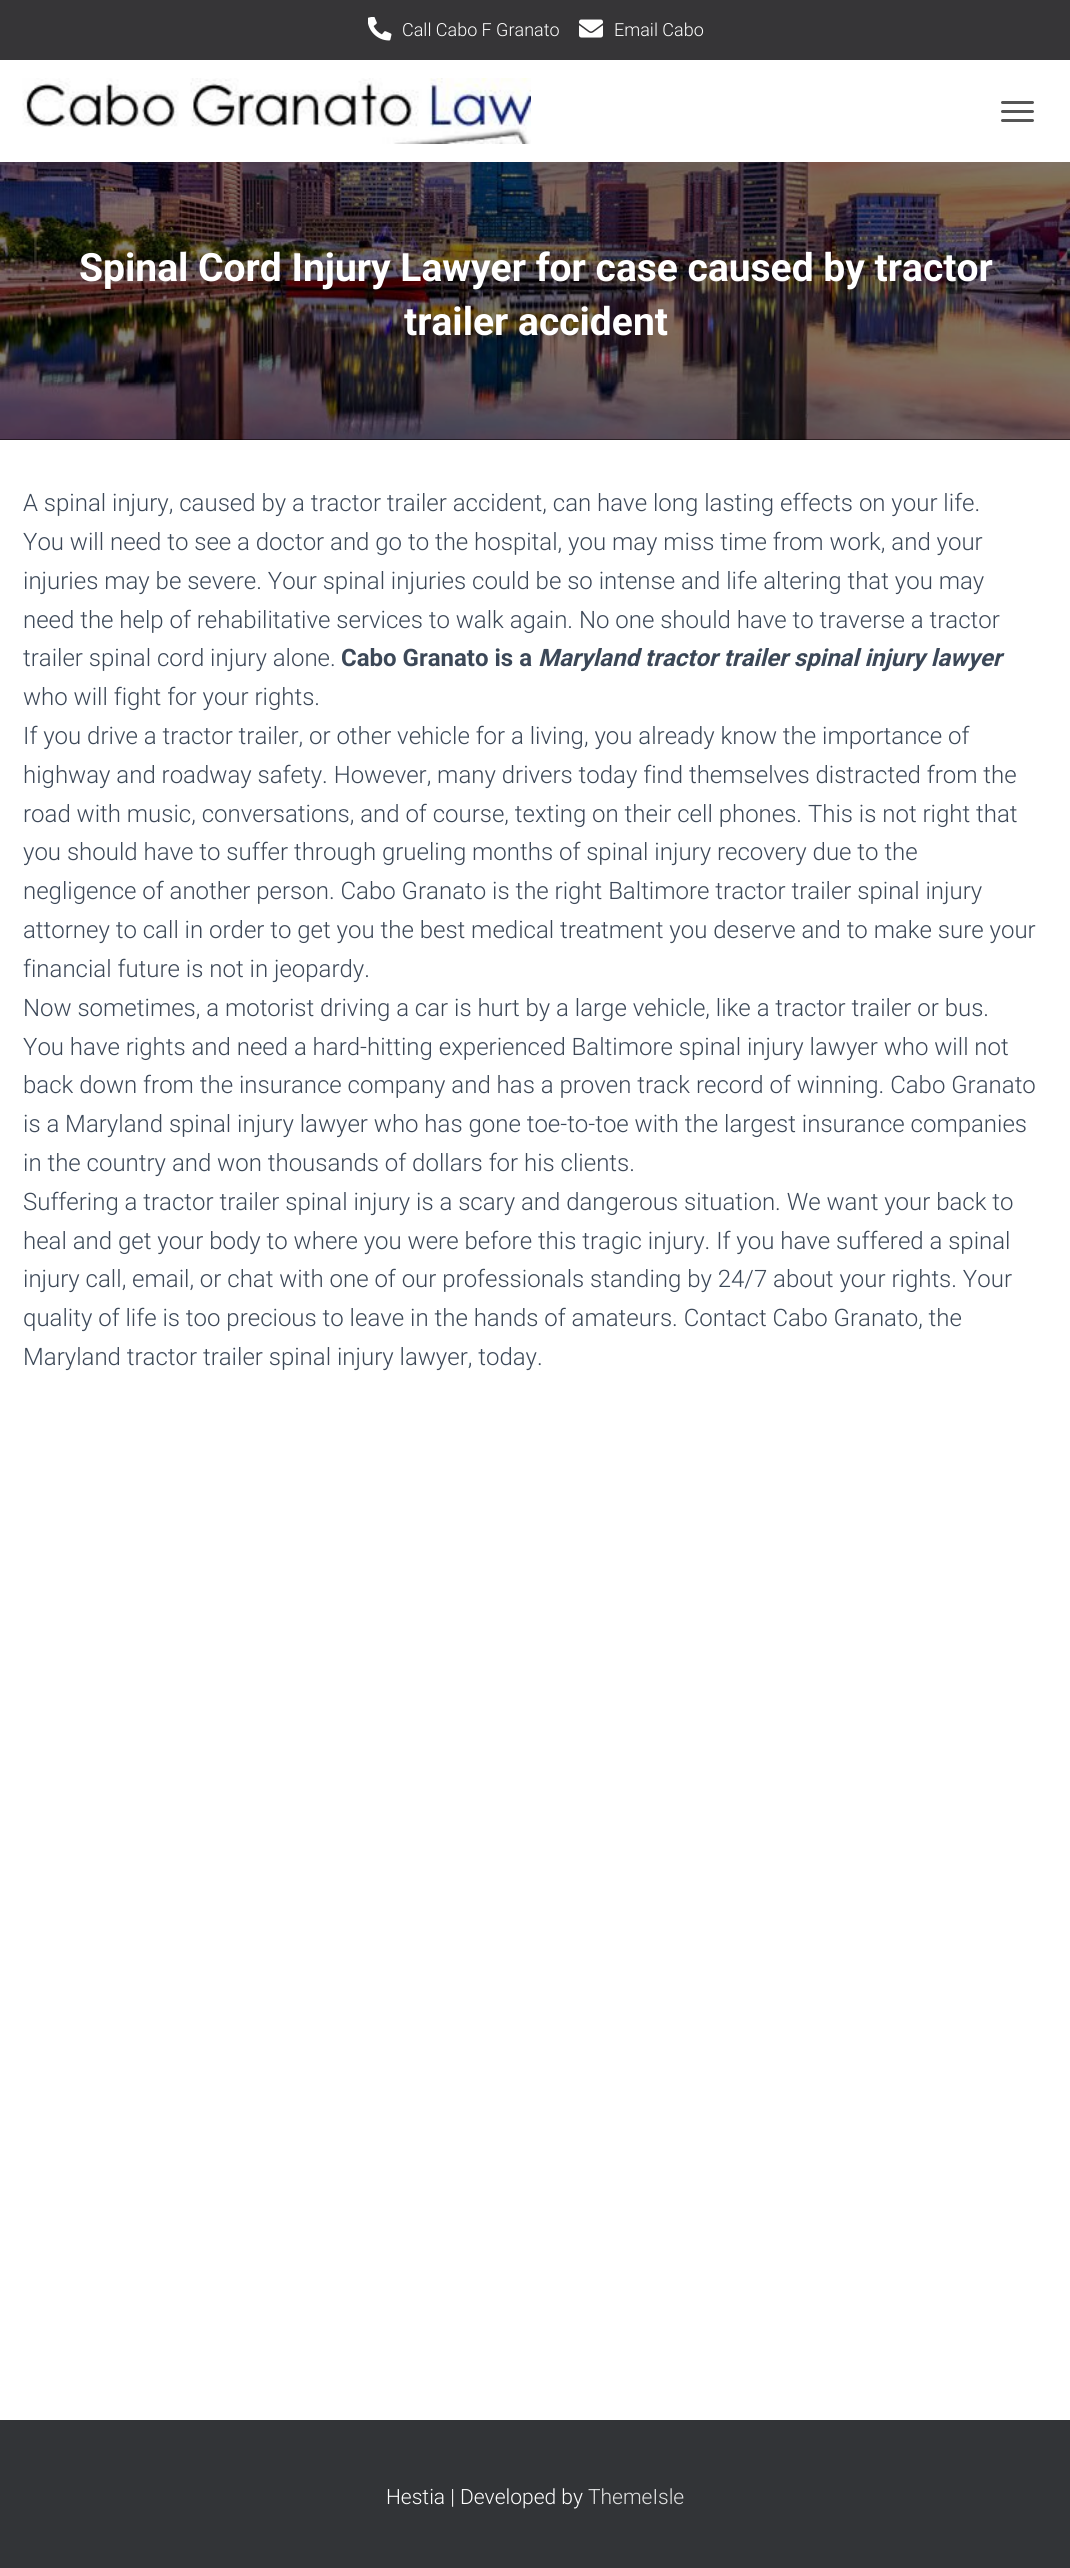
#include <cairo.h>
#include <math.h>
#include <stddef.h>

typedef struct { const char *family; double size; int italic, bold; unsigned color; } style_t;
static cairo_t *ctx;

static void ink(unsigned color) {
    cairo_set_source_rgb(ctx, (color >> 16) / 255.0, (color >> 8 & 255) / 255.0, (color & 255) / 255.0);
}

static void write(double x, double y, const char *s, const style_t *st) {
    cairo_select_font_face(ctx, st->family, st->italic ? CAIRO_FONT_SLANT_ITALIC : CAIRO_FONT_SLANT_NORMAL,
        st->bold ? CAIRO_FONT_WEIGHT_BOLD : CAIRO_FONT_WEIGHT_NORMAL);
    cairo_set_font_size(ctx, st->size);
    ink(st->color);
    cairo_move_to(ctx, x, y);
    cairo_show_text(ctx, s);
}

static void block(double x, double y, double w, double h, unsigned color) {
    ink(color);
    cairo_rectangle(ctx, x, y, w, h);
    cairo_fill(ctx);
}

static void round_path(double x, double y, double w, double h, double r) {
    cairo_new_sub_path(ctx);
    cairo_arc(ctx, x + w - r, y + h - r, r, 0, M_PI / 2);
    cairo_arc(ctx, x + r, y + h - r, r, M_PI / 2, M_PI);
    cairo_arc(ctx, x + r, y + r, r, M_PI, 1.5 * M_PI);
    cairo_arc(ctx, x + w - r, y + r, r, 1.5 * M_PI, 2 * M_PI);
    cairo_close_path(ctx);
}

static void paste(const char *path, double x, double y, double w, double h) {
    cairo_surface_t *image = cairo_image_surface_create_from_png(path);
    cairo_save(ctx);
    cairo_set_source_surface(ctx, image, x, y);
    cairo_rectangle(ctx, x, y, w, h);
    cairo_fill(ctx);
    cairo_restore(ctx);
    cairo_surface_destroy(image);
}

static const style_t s1 = {"Roboto Light", 18, 0, 0, 0xffffff};
static const style_t s2 = {"Roboto", 39, 0, 1, 0xffffff};
static const style_t s3 = {"Roboto Light", 24, 0, 0, 0x3c4858};
static const style_t s4 = {"Roboto", 24, 0, 1, 0x3c4858};
static const style_t s5 = {"Roboto", 24, 1, 1, 0x3c4858};
static const style_t s6 = {"Roboto Light", 21, 0, 0, 0xffffff};
static const style_t s7 = {"Roboto Light", 21, 0, 0, 0xe2e3e3};

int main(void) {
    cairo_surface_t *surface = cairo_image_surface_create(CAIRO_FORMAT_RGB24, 1070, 2568);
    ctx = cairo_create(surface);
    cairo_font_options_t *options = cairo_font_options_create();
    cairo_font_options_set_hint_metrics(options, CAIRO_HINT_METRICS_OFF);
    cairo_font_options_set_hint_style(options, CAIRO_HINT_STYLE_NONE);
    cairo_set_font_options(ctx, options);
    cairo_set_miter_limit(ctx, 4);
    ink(0x050000);
    cairo_paint(ctx);
    block(0, 0, 1070, 60, 0x363537);
    paste("pic1.png", 368, 17, 24, 24);
    write(402, 36, "Call Cabo F Granato", &s1);
    paste("pic2.png", 579, 19, 24, 19);
    write(614, 36, "Email Cabo", &s1);
    block(0, 60, 1070, 102, 0xffffff);
    paste("pic3.png", 22, 78, 509, 66);
    ink(0x555555);
    round_path(1001, 101, 33, 3, 1.5);
    cairo_fill(ctx);
    round_path(1001, 110, 33, 3, 1.5);
    cairo_fill(ctx);
    round_path(1001, 119, 33, 3, 1.5);
    cairo_fill(ctx);
    paste("pic4.png", 0, 162, 1070, 278);
    write(79, 281, "Spinal Cord Injury Lawyer for case caused by tractor", &s2);
    write(404, 335, "trailer accident", &s2);
    block(0, 440, 1070, 1980, 0xffffff);
    write(23, 511, "A spinal injury, caused by a tractor trailer accident, can have long lasting effects on your life.", &s3);
    write(23, 550, "You will need to see a doctor and go to the hospital, you may miss time from work, and your", &s3);
    write(23, 589, "injuries may be severe. Your spinal injuries could be so intense and life altering that you may", &s3);
    write(23, 628, "need the help of rehabilitative services to walk again. No one should have to traverse a tractor", &s3);
    write(23, 666, "trailer spinal cord injury alone.", &s3);
    write(341, 666, "Cabo Granato is a", &s4);
    write(538, 666, "Maryland tractor trailer spinal injury lawyer", &s5);
    write(23, 705, "who will fight for your rights.", &s3);
    write(23, 744, "If you drive a tractor trailer, or other vehicle for a living, you already know the importance of", &s3);
    write(23, 783, "highway and roadway safety. However, many drivers today find themselves distracted from the", &s3);
    write(23, 822, "road with music, conversations, and of course, texting on their cell phones. This is not right that", &s3);
    write(23, 860, "you should have to suffer through grueling months of spinal injury recovery due to the", &s3);
    write(23, 899, "negligence of another person. Cabo Granato is the right Baltimore tractor trailer spinal injury", &s3);
    write(23, 938, "attorney to call in order to get you the best medical treatment you deserve and to make sure your", &s3);
    write(23, 977, "financial future is not in jeopardy.", &s3);
    write(23, 1016, "Now sometimes, a motorist driving a car is hurt by a large vehicle, like a tractor trailer or bus.", &s3);
    write(23, 1055, "You have rights and need a hard-hitting experienced Baltimore spinal injury lawyer who will not", &s3);
    write(23, 1093, "back down from the insurance company and has a proven track record of winning. Cabo Granato", &s3);
    write(23, 1132, "is a Maryland spinal injury lawyer who has gone toe-to-toe with the largest insurance companies", &s3);
    write(23, 1171, "in the country and won thousands of dollars for his clients.", &s3);
    write(23, 1210, "Suffering a tractor trailer spinal injury is a scary and dangerous situation. We want your back to", &s3);
    write(23, 1249, "heal and get your body to where you were before this tragic injury. If you have suffered a spinal", &s3);
    write(23, 1287, "injury call, email, or chat with one of our professionals standing by 24/7 about your rights. Your", &s3);
    write(23, 1326, "quality of life is too precious to leave in the hands of amateurs. Contact Cabo Granato, the", &s3);
    write(23, 1365, "Maryland tractor trailer spinal injury lawyer, today.", &s3);
    block(0, 2420, 1070, 148, 0x323437);
    write(386, 2504, "Hestia | Developed by", &s6);
    write(588, 2504, "ThemeIsle", &s7);
    cairo_surface_write_to_png(surface, "screenshot.png");
    cairo_font_options_destroy(options);
    cairo_destroy(ctx);
    cairo_surface_destroy(surface);
    return 0;
}
